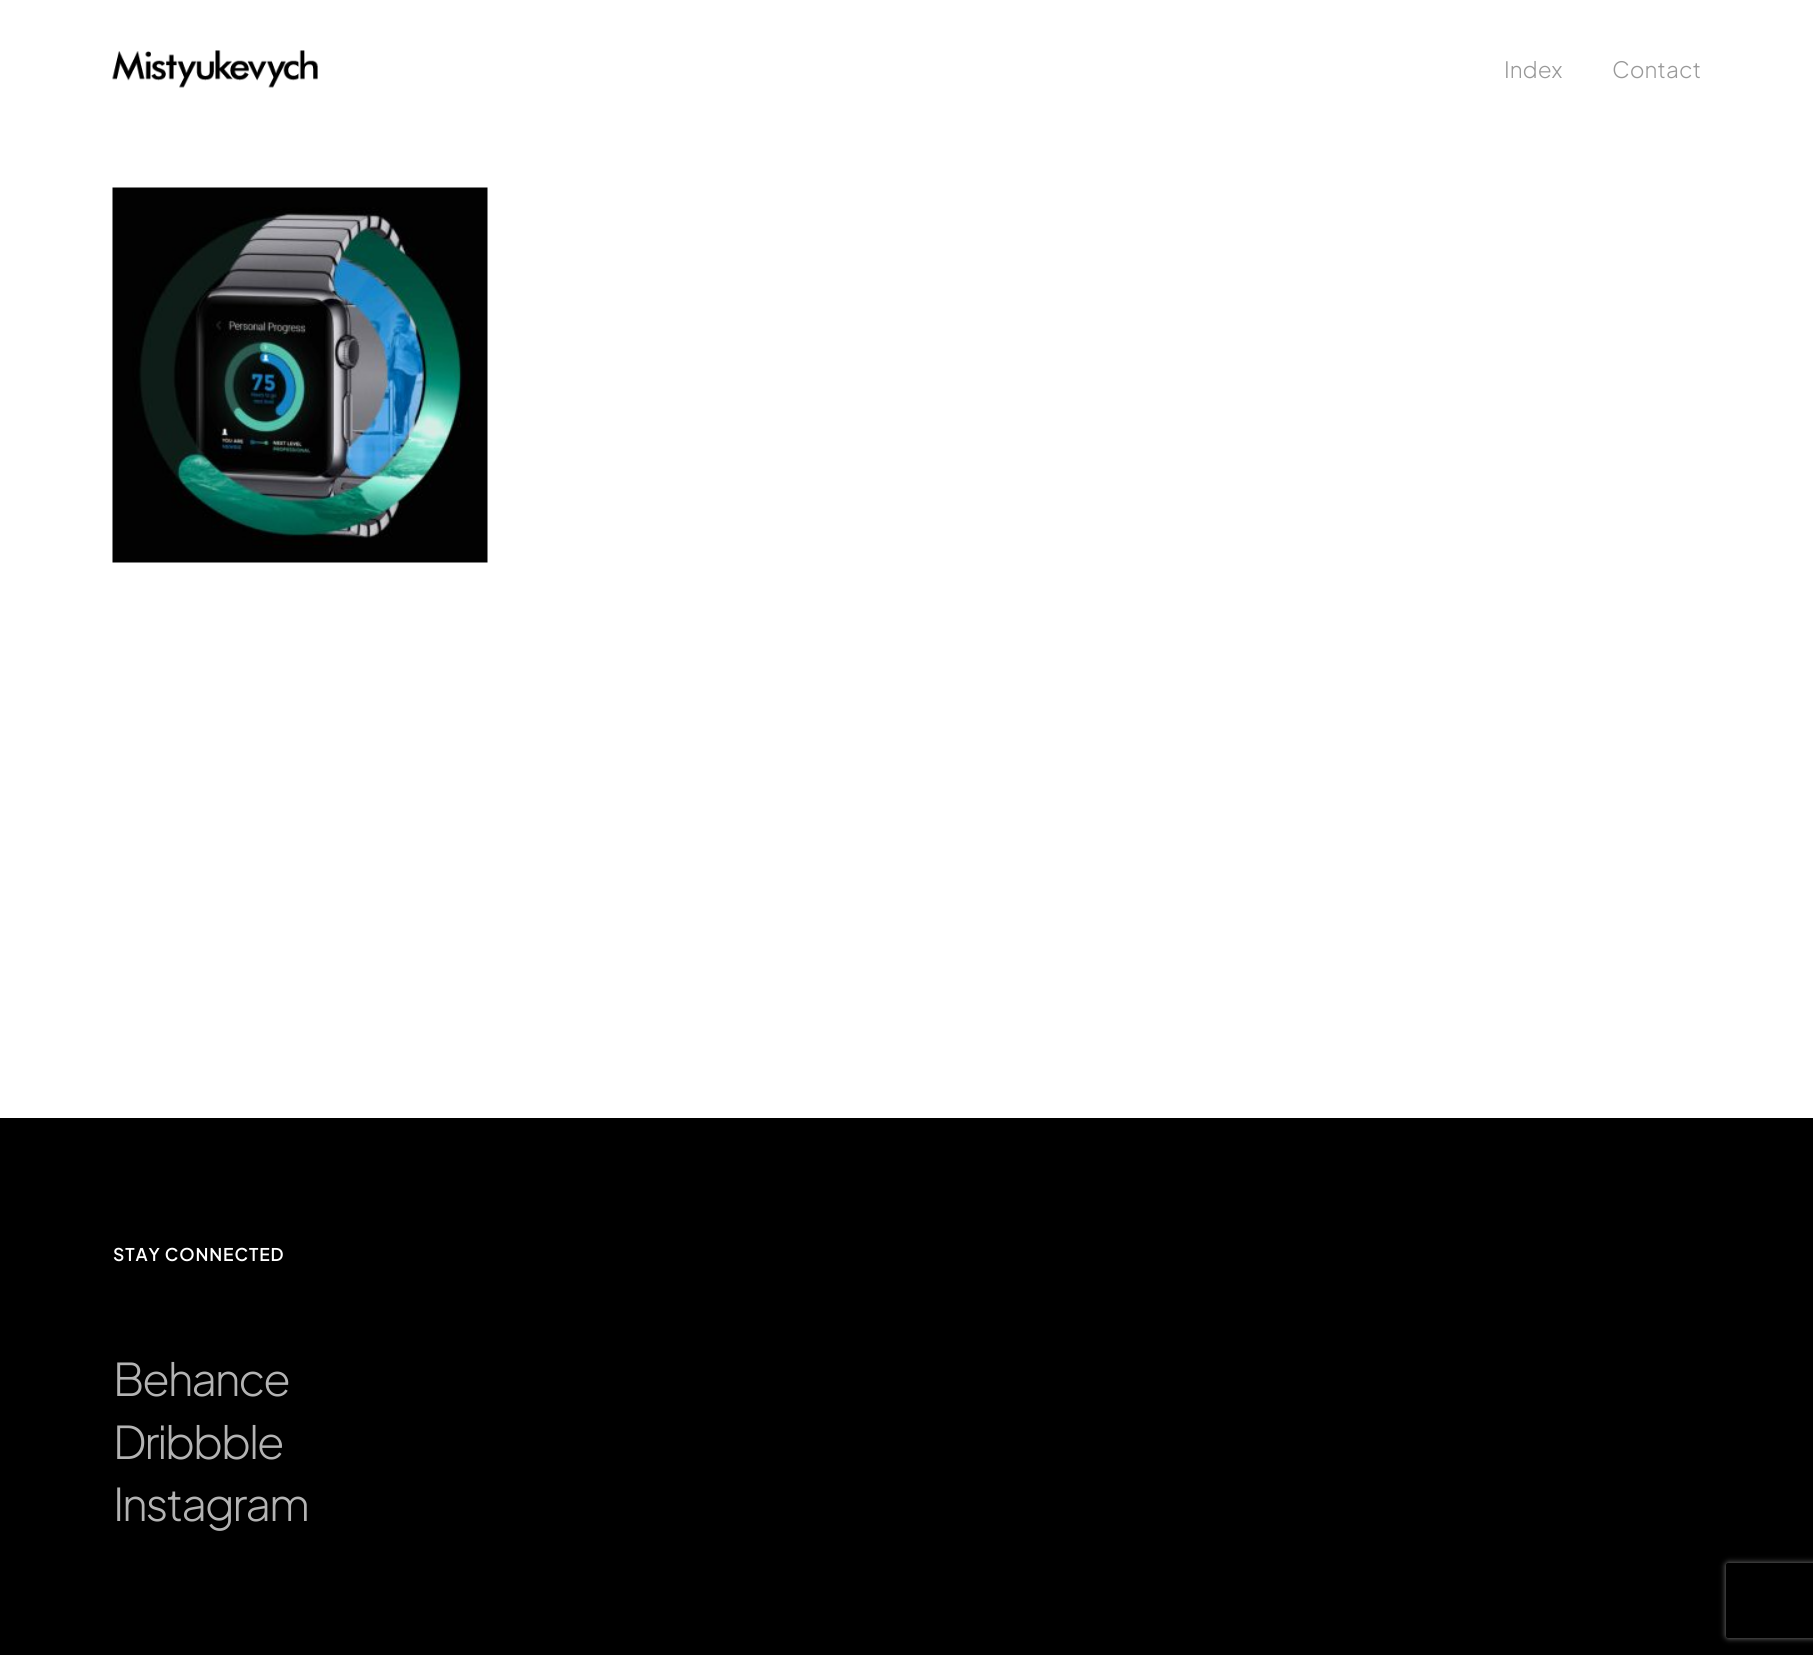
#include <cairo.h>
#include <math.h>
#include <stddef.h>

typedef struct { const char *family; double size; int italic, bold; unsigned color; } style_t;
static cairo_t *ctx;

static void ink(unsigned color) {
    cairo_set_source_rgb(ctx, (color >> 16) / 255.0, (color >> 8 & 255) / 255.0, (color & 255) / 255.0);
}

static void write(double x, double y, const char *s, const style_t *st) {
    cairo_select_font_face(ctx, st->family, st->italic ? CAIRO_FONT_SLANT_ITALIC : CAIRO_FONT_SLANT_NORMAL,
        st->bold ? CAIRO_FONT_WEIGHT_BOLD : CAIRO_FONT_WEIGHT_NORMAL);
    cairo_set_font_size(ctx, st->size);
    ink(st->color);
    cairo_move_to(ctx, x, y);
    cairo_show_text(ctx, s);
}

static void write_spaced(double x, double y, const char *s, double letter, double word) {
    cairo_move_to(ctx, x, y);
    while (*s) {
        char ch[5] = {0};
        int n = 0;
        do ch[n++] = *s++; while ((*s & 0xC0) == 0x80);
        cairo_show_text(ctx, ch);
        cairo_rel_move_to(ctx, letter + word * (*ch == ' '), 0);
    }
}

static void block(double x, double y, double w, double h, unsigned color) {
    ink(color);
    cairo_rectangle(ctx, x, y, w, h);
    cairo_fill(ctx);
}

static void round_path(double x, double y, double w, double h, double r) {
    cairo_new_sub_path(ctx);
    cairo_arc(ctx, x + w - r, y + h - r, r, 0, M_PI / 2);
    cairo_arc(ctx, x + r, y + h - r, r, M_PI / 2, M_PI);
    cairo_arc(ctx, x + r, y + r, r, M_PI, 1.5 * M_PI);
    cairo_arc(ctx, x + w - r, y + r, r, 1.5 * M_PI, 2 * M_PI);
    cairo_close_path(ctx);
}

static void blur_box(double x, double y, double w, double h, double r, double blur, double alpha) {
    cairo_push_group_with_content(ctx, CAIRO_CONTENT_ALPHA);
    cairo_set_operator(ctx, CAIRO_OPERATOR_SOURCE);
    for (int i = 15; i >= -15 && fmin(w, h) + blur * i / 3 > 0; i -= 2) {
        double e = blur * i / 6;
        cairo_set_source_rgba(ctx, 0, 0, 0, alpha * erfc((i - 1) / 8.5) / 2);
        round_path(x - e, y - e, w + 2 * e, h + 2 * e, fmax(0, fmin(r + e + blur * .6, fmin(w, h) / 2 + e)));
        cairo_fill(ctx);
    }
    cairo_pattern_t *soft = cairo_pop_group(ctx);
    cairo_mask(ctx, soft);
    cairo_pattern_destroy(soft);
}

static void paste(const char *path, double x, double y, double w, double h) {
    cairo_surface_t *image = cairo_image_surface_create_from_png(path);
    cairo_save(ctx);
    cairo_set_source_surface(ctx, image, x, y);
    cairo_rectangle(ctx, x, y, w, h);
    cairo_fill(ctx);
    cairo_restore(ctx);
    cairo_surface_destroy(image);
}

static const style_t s1 = {"Plus Jakarta Sans Light", 22.5, 0, 0, 0x999999};

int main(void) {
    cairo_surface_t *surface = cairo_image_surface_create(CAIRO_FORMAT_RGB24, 1813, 1655);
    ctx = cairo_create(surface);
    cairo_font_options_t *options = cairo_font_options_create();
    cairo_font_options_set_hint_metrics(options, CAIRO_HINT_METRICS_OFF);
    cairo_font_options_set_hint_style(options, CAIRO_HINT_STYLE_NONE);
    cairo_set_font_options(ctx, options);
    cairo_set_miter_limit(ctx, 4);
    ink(0xffffff);
    cairo_paint(ctx);
    paste("pic1.png", 112, 50, 206, 38);
    write(1504, 78, "Index", &s1);
    write(1612, 78, "Contact", &s1);
    paste("pic2.png", 112, 187, 376, 376);
    block(0, 1118, 1813, 537, 0x000000);
    cairo_select_font_face(ctx, "Plus Jakarta Sans SemiBold", CAIRO_FONT_SLANT_NORMAL, CAIRO_FONT_WEIGHT_NORMAL);
    cairo_set_font_size(ctx, 17.5);
    ink(0xffffff);
    write_spaced(113, 1261, "STAY CONNECTED", 0.9, 0);
    cairo_select_font_face(ctx, "Plus Jakarta Sans Light", CAIRO_FONT_SLANT_NORMAL, CAIRO_FONT_WEIGHT_NORMAL);
    cairo_set_font_size(ctx, 45);
    ink(0xb3b3b3);
    write_spaced(113, 1396, "Behance", -2.25, 0);
    write_spaced(113, 1459, "Dribbble", -2.25, 0);
    write_spaced(113, 1521, "Instagram", -2.25, 0);
    cairo_save(ctx);
    cairo_set_fill_rule(ctx, CAIRO_FILL_RULE_EVEN_ODD);
    cairo_new_path(ctx);
    cairo_move_to(ctx, 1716, 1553);
    cairo_line_to(ctx, 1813, 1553);
    cairo_line_to(ctx, 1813, 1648);
    cairo_line_to(ctx, 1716, 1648);
    cairo_close_path(ctx);
    cairo_move_to(ctx, 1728.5, 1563);
    cairo_line_to(ctx, 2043.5, 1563);
    cairo_curve_to(ctx, 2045, 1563, 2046, 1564, 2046, 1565.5);
    cairo_line_to(ctx, 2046, 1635.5);
    cairo_curve_to(ctx, 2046, 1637, 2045, 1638, 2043.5, 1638);
    cairo_line_to(ctx, 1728.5, 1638);
    cairo_curve_to(ctx, 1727, 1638, 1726, 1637, 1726, 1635.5);
    cairo_line_to(ctx, 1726, 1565.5);
    cairo_curve_to(ctx, 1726, 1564, 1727, 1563, 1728.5, 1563);
    cairo_close_path(ctx);
    cairo_clip(ctx);
    ink(0x808080);
    blur_box(1726, 1563, 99, 75, 2.5, 3, 1);
    cairo_restore(ctx);
    cairo_surface_write_to_png(surface, "screenshot.png");
    cairo_font_options_destroy(options);
    cairo_destroy(ctx);
    cairo_surface_destroy(surface);
    return 0;
}
